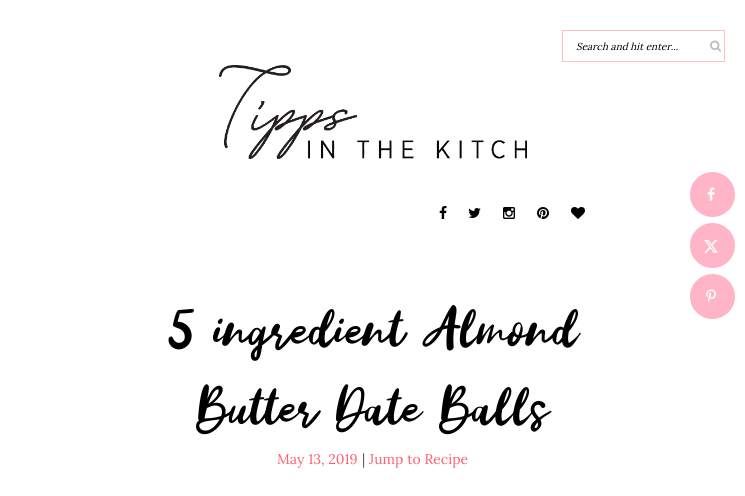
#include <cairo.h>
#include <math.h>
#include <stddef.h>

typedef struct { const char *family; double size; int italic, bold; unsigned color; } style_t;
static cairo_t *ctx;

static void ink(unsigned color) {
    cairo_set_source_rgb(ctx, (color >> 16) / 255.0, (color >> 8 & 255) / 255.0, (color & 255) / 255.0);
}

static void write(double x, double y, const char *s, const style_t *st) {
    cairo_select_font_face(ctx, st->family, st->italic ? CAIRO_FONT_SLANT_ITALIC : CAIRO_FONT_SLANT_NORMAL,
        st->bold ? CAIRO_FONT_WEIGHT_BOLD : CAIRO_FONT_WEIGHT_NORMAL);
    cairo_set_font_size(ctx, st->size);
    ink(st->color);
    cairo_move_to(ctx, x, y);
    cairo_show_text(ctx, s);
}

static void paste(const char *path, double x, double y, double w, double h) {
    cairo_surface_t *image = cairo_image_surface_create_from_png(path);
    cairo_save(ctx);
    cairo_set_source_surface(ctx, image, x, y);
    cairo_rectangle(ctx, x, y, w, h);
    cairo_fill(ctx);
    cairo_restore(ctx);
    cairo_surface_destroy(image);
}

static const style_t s1 = {"Lora", 10, 1, 0, 0x000000};
static const style_t s2 = {"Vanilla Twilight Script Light", 50, 0, 0, 0x000000};
static const style_t s3 = {"Lora", 14, 0, 0, 0xff5e6f};
static const style_t s4 = {"Lora", 14, 0, 0, 0x4c4a47};

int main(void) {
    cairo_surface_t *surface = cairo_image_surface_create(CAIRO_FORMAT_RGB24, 745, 496);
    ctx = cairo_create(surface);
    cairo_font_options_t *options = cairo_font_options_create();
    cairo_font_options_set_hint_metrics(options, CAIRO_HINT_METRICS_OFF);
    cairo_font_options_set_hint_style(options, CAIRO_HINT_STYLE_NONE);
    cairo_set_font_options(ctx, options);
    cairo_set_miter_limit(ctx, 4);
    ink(0xffffff);
    cairo_paint(ctx);
    cairo_rectangle(ctx, 562.5, 30.5, 162, 31);
    ink(0xffc0c0);
    cairo_set_line_width(ctx, 1);
    cairo_stroke(ctx);
    write(576, 50, "Search and hit enter...", &s1);
    paste("pic1.png", 710, 40, 11, 12);
    ink(0xffb5c7);
    cairo_arc(ctx, 712.5, 194.5, 21.5, 0, 2 * M_PI);
    cairo_fill_preserve(ctx);
    cairo_set_line_width(ctx, 2);
    cairo_stroke(ctx);
    paste("pic2.png", 707, 187, 8, 14);
    cairo_arc(ctx, 712.5, 245.5, 21.5, 0, 2 * M_PI);
    cairo_fill_preserve(ctx);
    cairo_stroke(ctx);
    paste("pic3.png", 704, 240, 14, 13);
    cairo_arc(ctx, 712.5, 296.5, 21.5, 0, 2 * M_PI);
    cairo_fill_preserve(ctx);
    cairo_stroke(ctx);
    paste("pic4.png", 706, 289, 10, 14);
    paste("pic5.png", 219, 65, 308, 94);
    paste("pic6.png", 439, 206, 8, 13);
    paste("pic7.png", 468, 208, 13, 10);
    paste("pic8.png", 503, 207, 12, 12);
    paste("pic9.png", 537, 207, 12, 12);
    paste("pic10.png", 571, 207, 14, 12);
    write(166, 342, "5 ingredient Almond", &s2);
    write(196, 420, "Butter Date Balls", &s2);
    write(277, 464, "May 13, 2019", &s3);
    write(362, 464, "|", &s4);
    write(369, 464, "Jump to Recipe", &s3);
    cairo_surface_write_to_png(surface, "screenshot.png");
    cairo_font_options_destroy(options);
    cairo_destroy(ctx);
    cairo_surface_destroy(surface);
    return 0;
}
